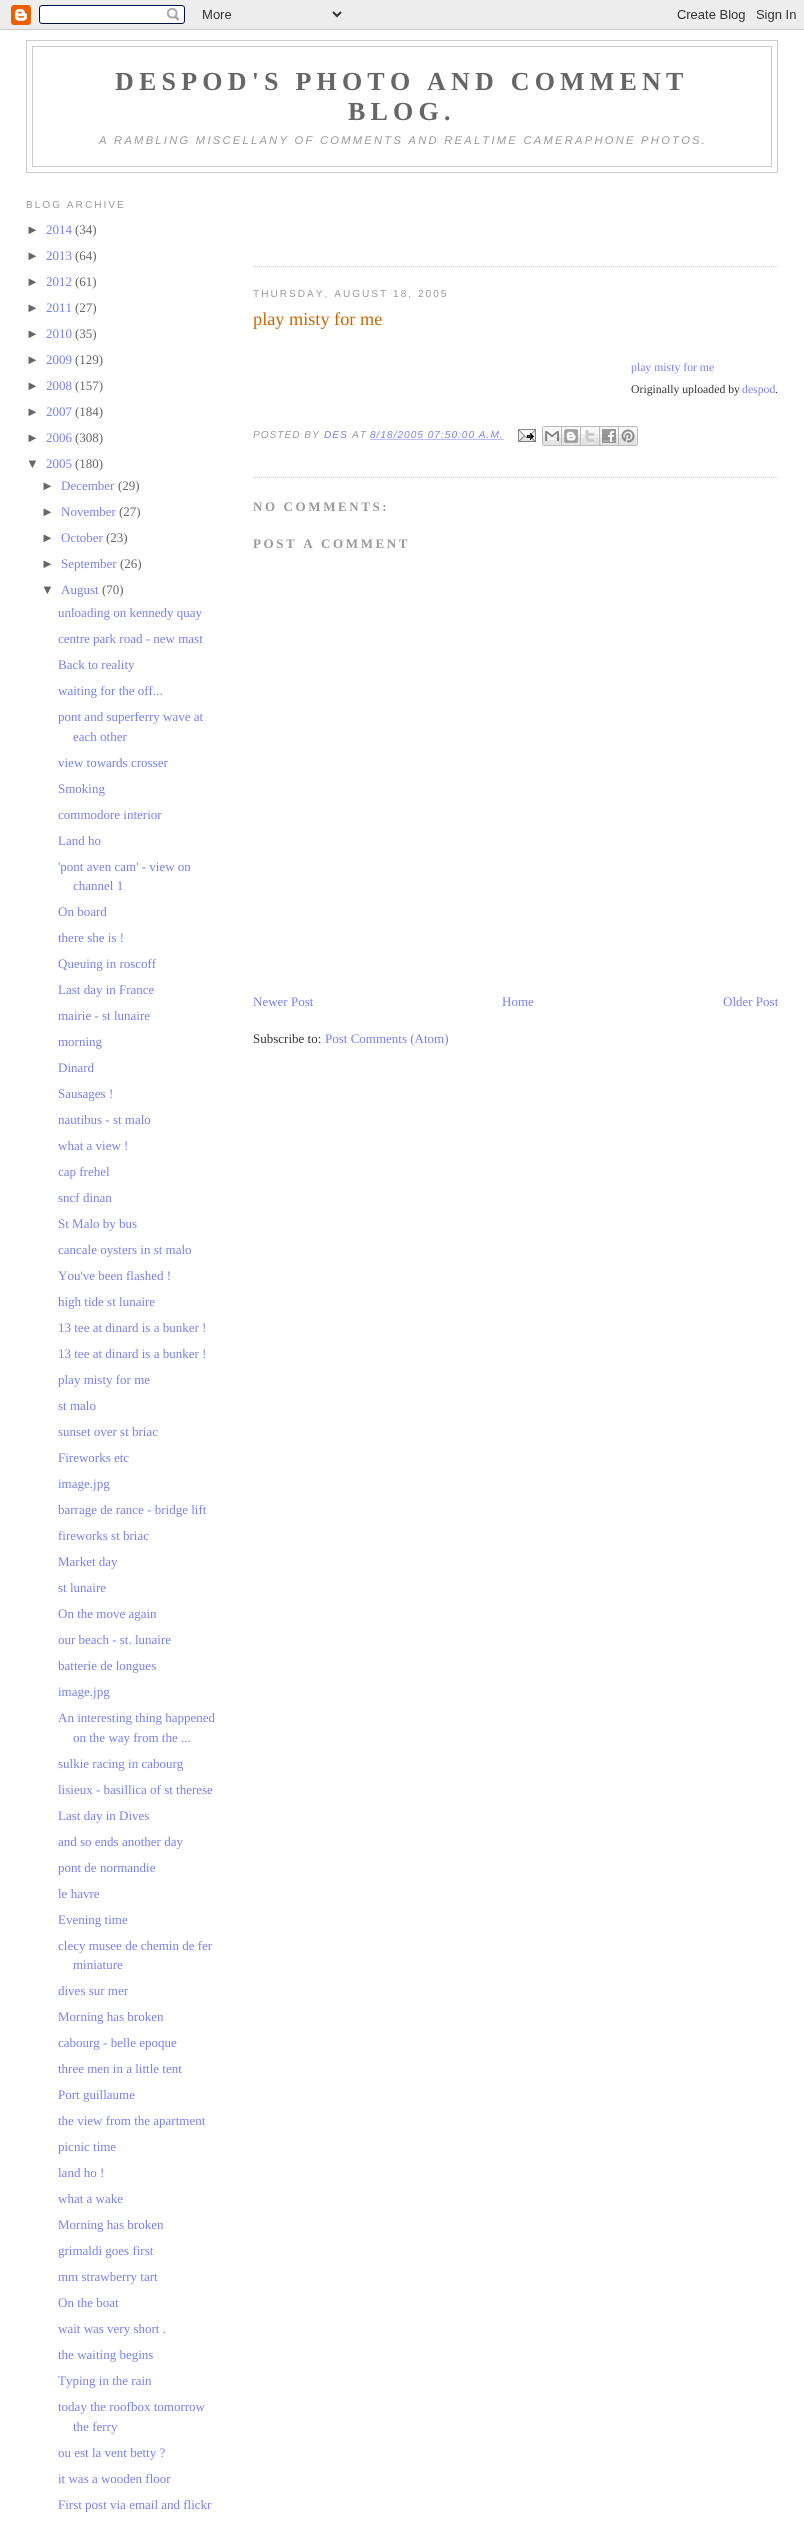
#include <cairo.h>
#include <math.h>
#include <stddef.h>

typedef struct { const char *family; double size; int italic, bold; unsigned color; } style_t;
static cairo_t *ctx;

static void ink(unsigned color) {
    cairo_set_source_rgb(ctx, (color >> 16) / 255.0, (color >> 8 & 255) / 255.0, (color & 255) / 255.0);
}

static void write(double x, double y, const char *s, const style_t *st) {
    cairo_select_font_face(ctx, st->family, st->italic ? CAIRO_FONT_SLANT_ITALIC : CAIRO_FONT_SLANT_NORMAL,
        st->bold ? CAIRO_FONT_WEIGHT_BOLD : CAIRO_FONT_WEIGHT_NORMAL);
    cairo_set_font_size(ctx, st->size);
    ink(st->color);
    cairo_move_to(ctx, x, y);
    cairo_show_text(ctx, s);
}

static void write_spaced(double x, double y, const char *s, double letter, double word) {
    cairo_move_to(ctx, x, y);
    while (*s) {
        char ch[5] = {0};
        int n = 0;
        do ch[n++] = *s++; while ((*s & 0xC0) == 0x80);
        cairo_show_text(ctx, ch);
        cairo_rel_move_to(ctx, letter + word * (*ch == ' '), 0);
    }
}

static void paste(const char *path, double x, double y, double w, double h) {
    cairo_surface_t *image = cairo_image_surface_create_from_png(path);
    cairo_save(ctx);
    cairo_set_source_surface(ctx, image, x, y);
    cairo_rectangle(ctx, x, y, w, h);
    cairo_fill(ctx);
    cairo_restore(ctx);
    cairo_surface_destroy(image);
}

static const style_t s1 = {"Liberation Sans", 13, 0, 0, 0x666666};
static const style_t s2 = {"Liberation Serif", 13, 0, 0, 0x7780ee};
static const style_t s3 = {"Liberation Serif", 13, 0, 0, 0x666666};
static const style_t s4 = {"Liberation Serif", 18.25, 0, 0, 0xcc6600};
static const style_t s5 = {"Liberation Serif", 11.75, 0, 0, 0x7780ee};
static const style_t s6 = {"Liberation Serif", 11.75, 0, 0, 0x333333};
static const style_t s7 = {"Liberation Serif", 13, 0, 0, 0x333333};

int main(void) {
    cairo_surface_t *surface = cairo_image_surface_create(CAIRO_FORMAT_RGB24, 804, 2537);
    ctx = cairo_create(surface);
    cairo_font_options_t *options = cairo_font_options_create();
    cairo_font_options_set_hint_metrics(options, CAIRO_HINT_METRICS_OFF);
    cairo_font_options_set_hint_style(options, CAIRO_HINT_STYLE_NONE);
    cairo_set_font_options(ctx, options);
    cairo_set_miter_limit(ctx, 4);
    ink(0xffffff);
    cairo_paint(ctx);
    paste("pic1.png", 0, 0, 804, 30);
    cairo_rectangle(ctx, 26.5, 40.5, 751, 132);
    ink(0xcccccc);
    cairo_set_line_width(ctx, 1);
    cairo_stroke(ctx);
    cairo_rectangle(ctx, 32.5, 46.5, 739, 120);
    cairo_stroke(ctx);
    cairo_select_font_face(ctx, "Liberation Serif", CAIRO_FONT_SLANT_NORMAL, CAIRO_FONT_WEIGHT_BOLD);
    cairo_set_font_size(ctx, 26);
    ink(0x666666);
    write_spaced(115, 90, "DESPOD'S PHOTO AND COMMENT", 5.2, 0);
    write_spaced(348, 120, "BLOG.", 5.2, 0);
    cairo_select_font_face(ctx, "Liberation Sans", CAIRO_FONT_SLANT_ITALIC, CAIRO_FONT_WEIGHT_NORMAL);
    cairo_set_font_size(ctx, 11.18);
    ink(0x999999);
    write_spaced(99, 144, "A RAMBLING MISCELLANY OF COMMENTS AND REALTIME CAMERAPHONE PHOTOS.", 2.25, 0);
    cairo_select_font_face(ctx, "Liberation Sans", CAIRO_FONT_SLANT_NORMAL, CAIRO_FONT_WEIGHT_NORMAL);
    cairo_set_font_size(ctx, 10.1);
    write_spaced(26, 208, "BLOG ARCHIVE", 2, 0);
    write(26, 234, "►", &s1);
    write(46, 234, "2014", &s2);
    write(75, 234, "(34)", &s3);
    write(26, 260, "►", &s1);
    write(46, 260, "2013", &s2);
    write(75, 260, "(64)", &s3);
    write(26, 286, "►", &s1);
    write(46, 286, "2012", &s2);
    write(75, 286, "(61)", &s3);
    write(26, 312, "►", &s1);
    write(46, 312, "2011", &s2);
    write(75, 312, "(27)", &s3);
    write(26, 338, "►", &s1);
    write(46, 338, "2010", &s2);
    write(75, 338, "(35)", &s3);
    write(26, 364, "►", &s1);
    write(46, 364, "2009", &s2);
    write(75, 364, "(129)", &s3);
    write(26, 390, "►", &s1);
    write(46, 390, "2008", &s2);
    write(75, 390, "(157)", &s3);
    write(26, 416, "►", &s1);
    write(46, 416, "2007", &s2);
    write(75, 416, "(184)", &s3);
    write(26, 442, "►", &s1);
    write(46, 442, "2006", &s2);
    write(75, 442, "(308)", &s3);
    write(26, 468, "▼", &s1);
    write(46, 468, "2005", &s2);
    write(75, 468, "(180)", &s3);
    write(41, 490, "►", &s1);
    write(61, 490, "December", &s2);
    write(118, 490, "(29)", &s3);
    write(41, 516, "►", &s1);
    write(61, 516, "November", &s2);
    write(119, 516, "(27)", &s3);
    write(41, 542, "►", &s1);
    write(61, 542, "October", &s2);
    write(106, 542, "(23)", &s3);
    write(41, 568, "►", &s1);
    write(61, 568, "September", &s2);
    write(120, 568, "(26)", &s3);
    write(41, 594, "▼", &s1);
    write(61, 594, "August", &s2);
    write(102, 594, "(70)", &s3);
    write(58, 617, "unloading on kennedy quay", &s2);
    write(58, 643, "centre park road - new mast", &s2);
    write(58, 669, "Back to reality", &s2);
    write(58, 695, "waiting for the off...", &s2);
    write(58, 721, "pont and superferry wave at", &s2);
    write(73, 741, "each other", &s2);
    write(58, 767, "view towards crosser", &s2);
    write(58, 793, "Smoking", &s2);
    write(58, 819, "commodore interior", &s2);
    write(58, 845, "Land ho", &s2);
    write(58, 871, "'pont aven cam' - view on", &s2);
    write(73, 890, "channel 1", &s2);
    write(58, 916, "On board", &s2);
    write(58, 942, "there she is !", &s2);
    write(58, 968, "Queuing in roscoff", &s2);
    write(58, 994, "Last day in France", &s2);
    write(58, 1020, "mairie - st lunaire", &s2);
    write(58, 1046, "morning", &s2);
    write(58, 1072, "Dinard", &s2);
    write(58, 1098, "Sausages !", &s2);
    write(58, 1124, "nautibus - st malo", &s2);
    write(58, 1150, "what a view !", &s2);
    write(58, 1176, "cap frehel", &s2);
    write(58, 1202, "sncf dinan", &s2);
    write(58, 1228, "St Malo by bus", &s2);
    write(58, 1254, "cancale oysters in st malo", &s2);
    write(58, 1280, "You've been flashed !", &s2);
    write(58, 1306, "high tide st lunaire", &s2);
    write(58, 1332, "13 tee at dinard is a bunker !", &s2);
    write(58, 1358, "13 tee at dinard is a bunker !", &s2);
    write(58, 1384, "play misty for me", &s2);
    write(58, 1410, "st malo", &s2);
    write(58, 1436, "sunset over st briac", &s2);
    write(58, 1462, "Fireworks etc", &s2);
    write(58, 1488, "image.jpg", &s2);
    write(58, 1514, "barrage de rance - bridge lift", &s2);
    write(58, 1540, "fireworks st briac", &s2);
    write(58, 1566, "Market day", &s2);
    write(58, 1592, "st lunaire", &s2);
    write(58, 1618, "On the move again", &s2);
    write(58, 1644, "our beach - st. lunaire", &s2);
    write(58, 1670, "batterie de longues", &s2);
    write(58, 1696, "image.jpg", &s2);
    write(58, 1722, "An interesting thing happened", &s2);
    write(73, 1742, "on the way from the ...", &s2);
    write(58, 1768, "sulkie racing in cabourg", &s2);
    write(58, 1794, "lisieux - basillica of st therese", &s2);
    write(58, 1820, "Last day in Dives", &s2);
    write(58, 1846, "and so ends another day", &s2);
    write(58, 1872, "pont de normandie", &s2);
    write(58, 1898, "le havre", &s2);
    write(58, 1924, "Evening time", &s2);
    write(58, 1950, "clecy musee de chemin de fer", &s2);
    write(73, 1969, "miniature", &s2);
    write(58, 1995, "dives sur mer", &s2);
    write(58, 2021, "Morning has broken", &s2);
    write(58, 2047, "cabourg - belle epoque", &s2);
    write(58, 2073, "three men in a little tent", &s2);
    write(58, 2099, "Port guillaume", &s2);
    write(58, 2125, "the view from the apartment", &s2);
    write(58, 2151, "picnic time", &s2);
    write(58, 2177, "land ho !", &s2);
    write(58, 2203, "what a wake", &s2);
    write(58, 2229, "Morning has broken", &s2);
    write(58, 2255, "grimaldi goes first", &s2);
    write(58, 2281, "mm strawberry tart", &s2);
    write(58, 2307, "On the boat", &s2);
    write(58, 2333, "wait was very short .", &s2);
    write(58, 2359, "the waiting begins", &s2);
    write(58, 2385, "Typing in the rain", &s2);
    write(58, 2411, "today the roofbox tomorrow", &s2);
    write(73, 2431, "the ferry", &s2);
    write(58, 2457, "ou est la vent betty ?", &s2);
    write(58, 2483, "it was a wooden floor", &s2);
    write(58, 2509, "First post via email and flickr", &s2);
    cairo_new_path(ctx);
    cairo_move_to(ctx, 253, 266.5);
    cairo_line_to(ctx, 778, 266.5);
    ink(0xcccccc);
    cairo_set_dash(ctx, (double[]){1, 1}, 2, 0);
    cairo_stroke(ctx);
    cairo_select_font_face(ctx, "Liberation Sans", CAIRO_FONT_SLANT_NORMAL, CAIRO_FONT_WEIGHT_NORMAL);
    cairo_set_font_size(ctx, 10.1);
    ink(0x999999);
    write_spaced(253, 297, "THURSDAY, AUGUST 18, 2005", 2, 0);
    cairo_new_path(ctx);
    cairo_move_to(ctx, 253, 477.5);
    cairo_line_to(ctx, 778, 477.5);
    ink(0xcccccc);
    cairo_stroke(ctx);
    write(253, 325, "play misty for me", &s4);
    write(631, 371, "play misty for me", &s5);
    write(631, 393, "Originally uploaded by", &s6);
    write(742, 393, "despod", &s5);
    write(775, 393, ".", &s6);
    cairo_select_font_face(ctx, "Liberation Sans", CAIRO_FONT_SLANT_ITALIC, CAIRO_FONT_WEIGHT_NORMAL);
    cairo_set_font_size(ctx, 10.1);
    ink(0x999999);
    write_spaced(253, 438, "POSTED BY", 1, 0);
    ink(0x7780ee);
    write_spaced(324, 438, "DES", 1, 0);
    ink(0x999999);
    write_spaced(352, 438, "AT", 1, 0);
    ink(0x7780ee);
    write_spaced(370, 438, "8/18/2005 07:50:00 A.M.", 1, 0);
    cairo_new_path(ctx);
    cairo_move_to(ctx, 370.5, 439.5);
    cairo_line_to(ctx, 504.5, 439.5);
    cairo_stroke(ctx);
    paste("pic2.png", 518, 429, 18, 13);
    paste("pic3.png", 542, 426, 20, 20);
    paste("pic4.png", 562, 426, 19, 20);
    paste("pic5.png", 581, 426, 19, 20);
    paste("pic6.png", 600, 426, 19, 20);
    paste("pic7.png", 619, 426, 19, 20);
    cairo_select_font_face(ctx, "Liberation Serif", CAIRO_FONT_SLANT_NORMAL, CAIRO_FONT_WEIGHT_BOLD);
    cairo_set_font_size(ctx, 13);
    ink(0x999999);
    write_spaced(253, 511, "NO COMMENTS:", 2.6, 0);
    write_spaced(253, 548, "POST A COMMENT", 2.6, 0);
    write(253, 1006, "Newer Post", &s2);
    write(502, 1006, "Home", &s2);
    write(723, 1006, "Older Post", &s2);
    write(253, 1043, "Subscribe to:", &s7);
    write(325, 1043, "Post Comments (Atom)", &s2);
    cairo_surface_write_to_png(surface, "screenshot.png");
    cairo_font_options_destroy(options);
    cairo_destroy(ctx);
    cairo_surface_destroy(surface);
    return 0;
}
